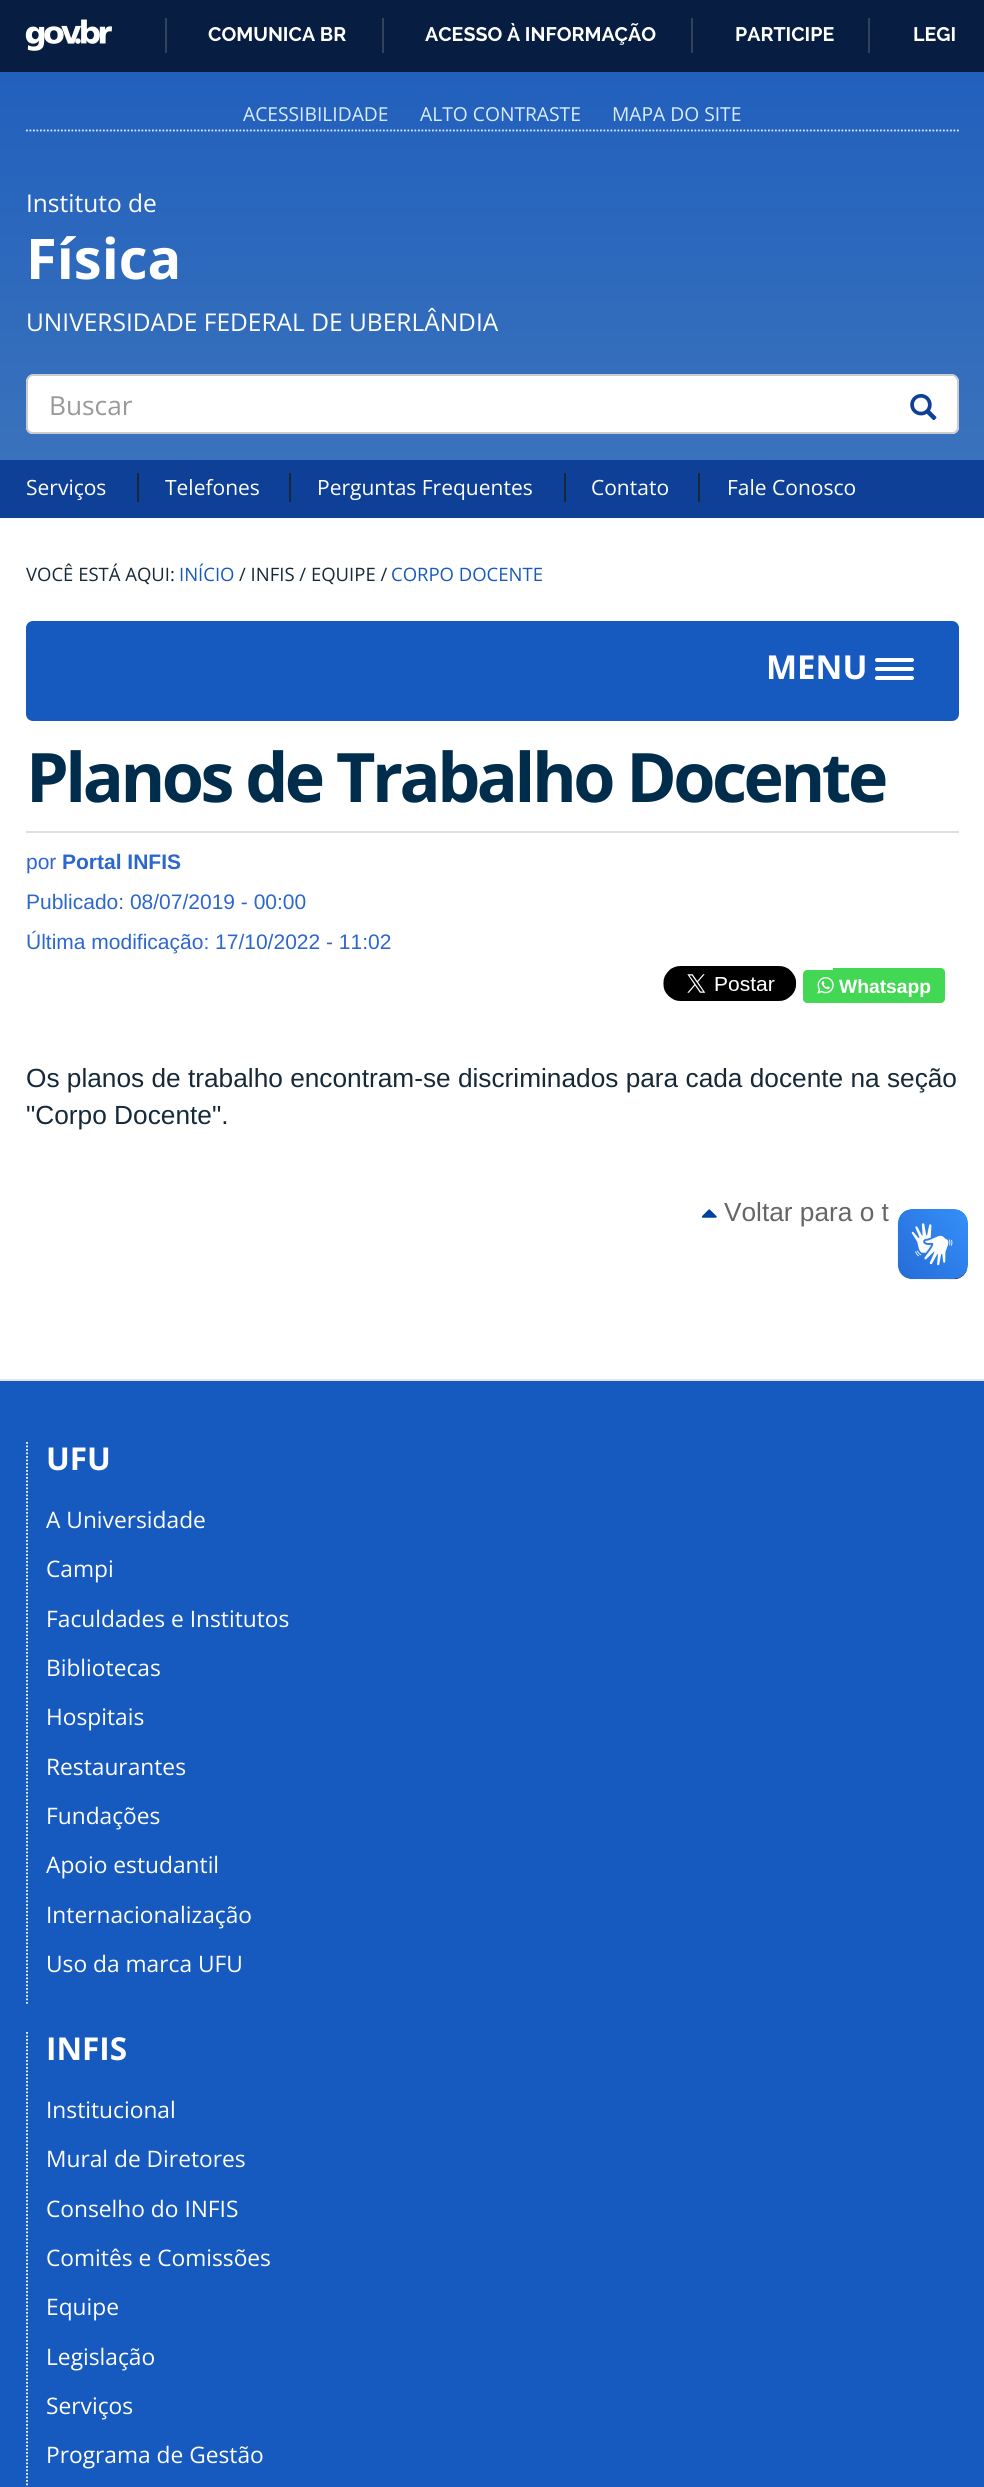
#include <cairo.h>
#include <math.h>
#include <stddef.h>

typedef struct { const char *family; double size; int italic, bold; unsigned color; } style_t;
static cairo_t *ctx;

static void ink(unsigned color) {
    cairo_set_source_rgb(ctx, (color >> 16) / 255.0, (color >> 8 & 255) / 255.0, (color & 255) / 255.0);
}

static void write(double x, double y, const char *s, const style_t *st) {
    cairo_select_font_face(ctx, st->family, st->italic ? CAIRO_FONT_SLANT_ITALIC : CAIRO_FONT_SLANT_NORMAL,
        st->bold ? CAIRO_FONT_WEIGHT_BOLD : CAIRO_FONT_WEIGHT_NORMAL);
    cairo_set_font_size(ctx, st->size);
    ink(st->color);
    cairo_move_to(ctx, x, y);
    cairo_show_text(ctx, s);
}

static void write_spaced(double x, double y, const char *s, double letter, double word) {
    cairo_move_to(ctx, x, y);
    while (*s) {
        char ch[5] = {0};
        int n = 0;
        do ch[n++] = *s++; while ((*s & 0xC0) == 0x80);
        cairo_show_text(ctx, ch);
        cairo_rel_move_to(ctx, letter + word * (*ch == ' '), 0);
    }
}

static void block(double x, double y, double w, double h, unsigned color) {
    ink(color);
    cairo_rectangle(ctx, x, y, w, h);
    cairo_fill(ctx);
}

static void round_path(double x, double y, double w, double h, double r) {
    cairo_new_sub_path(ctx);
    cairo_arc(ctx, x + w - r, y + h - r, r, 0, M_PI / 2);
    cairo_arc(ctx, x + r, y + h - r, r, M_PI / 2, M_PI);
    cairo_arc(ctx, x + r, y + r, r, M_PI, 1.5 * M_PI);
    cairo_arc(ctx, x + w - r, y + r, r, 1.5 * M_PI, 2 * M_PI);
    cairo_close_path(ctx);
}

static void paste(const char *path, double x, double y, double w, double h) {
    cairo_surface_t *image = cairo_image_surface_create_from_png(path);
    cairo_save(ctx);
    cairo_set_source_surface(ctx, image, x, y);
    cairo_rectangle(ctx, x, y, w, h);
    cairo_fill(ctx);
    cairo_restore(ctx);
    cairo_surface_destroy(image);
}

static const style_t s1 = {"Raleway", 19.6, 0, 1, 0xffffff};
static const style_t s2 = {"Open Sans", 19.25, 0, 0, 0xdcecff};
static const style_t s3 = {"Open Sans", 24.5, 0, 0, 0xffffff};
static const style_t s4 = {"Open Sans", 56, 0, 1, 0xffffff};
static const style_t s5 = {"Open Sans", 26.25, 0, 0, 0x999999};
static const style_t s6 = {"Open Sans", 21, 0, 0, 0xffffff};
static const style_t s7 = {"Open Sans", 18.5, 0, 0, 0x172938};
static const style_t s8 = {"Open Sans", 18.5, 0, 0, 0x165abf};
static const style_t s9 = {"Open Sans", 33, 0, 1, 0xffffff};
static const style_t s10 = {"Liberation Sans", 21, 0, 0, 0x2c67cd};
static const style_t s11 = {"Liberation Sans", 21, 0, 1, 0x2c67cd};
static const style_t s12 = {"Liberation Sans", 19.25, 0, 1, 0xffffff};
static const style_t s13 = {"Liberation Sans", 26.25, 0, 0, 0x172938};
static const style_t s14 = {"Liberation Sans", 26.25, 0, 0, 0x666666};
static const style_t s15 = {"Open Sans", 31.5, 0, 1, 0xffffff};
static const style_t s16 = {"Open Sans", 22.75, 0, 0, 0xffffff};

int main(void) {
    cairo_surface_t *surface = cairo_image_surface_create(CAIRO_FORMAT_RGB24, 984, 2487);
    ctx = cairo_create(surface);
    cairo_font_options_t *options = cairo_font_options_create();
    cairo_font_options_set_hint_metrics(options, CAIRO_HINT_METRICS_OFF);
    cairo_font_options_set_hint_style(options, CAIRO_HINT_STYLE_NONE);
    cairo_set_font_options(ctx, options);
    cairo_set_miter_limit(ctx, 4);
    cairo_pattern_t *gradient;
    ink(0xffffff);
    cairo_paint(ctx);
    block(0, 0, 984, 72, 0x071d41);
    paste("pic1.png", 25, 19, 87, 32);
    block(165, 18, 2, 35, 0x32425b);
    write(208, 41, "COMUNICA BR", &s1);
    block(382, 18, 2, 35, 0x32425b);
    write(425, 41, "ACESSO À INFORMAÇÃO", &s1);
    block(691, 18, 2, 35, 0x32425b);
    write(735, 41, "PARTICIPE", &s1);
    block(868, 18, 2, 35, 0x32425b);
    write(913, 41, "LEGI", &s1);
    gradient = cairo_pattern_create_linear(493, 72, 493, 460);
    cairo_pattern_add_color_stop_rgba(gradient, 0, 0.129, 0.376, 0.741, 1);
    cairo_pattern_add_color_stop_rgba(gradient, 1, 0.227, 0.447, 0.737, 1);
    cairo_set_source(ctx, gradient);
    cairo_pattern_destroy(gradient);
    cairo_rectangle(ctx, 0, 72, 984, 388);
    cairo_fill(ctx);
    cairo_new_path(ctx);
    cairo_move_to(ctx, 26, 130.5);
    cairo_line_to(ctx, 959, 130.5);
    ink(0xdcecff);
    cairo_set_line_width(ctx, 1.8);
    cairo_set_dash(ctx, (double[]){1.75, 1.75}, 2, 0);
    cairo_stroke(ctx);
    write(243, 121, "ACESSIBILIDADE", &s2);
    write(420, 121, "ALTO CONTRASTE", &s2);
    write(612, 121, "MAPA DO SITE", &s2);
    write(26, 212, "Instituto de", &s3);
    write(26, 279, "Física", &s4);
    write(26, 331, "UNIVERSIDADE FEDERAL DE UBERLÂNDIA", &s3);
    cairo_new_path(ctx);
    cairo_move_to(ctx, 889, 375);
    cairo_line_to(ctx, 952, 375);
    cairo_curve_to(ctx, 956, 375, 959, 378, 959, 382);
    cairo_line_to(ctx, 959, 427);
    cairo_curve_to(ctx, 959, 431, 956, 434, 952, 434);
    cairo_line_to(ctx, 889, 434);
    cairo_close_path(ctx);
    cairo_fill(ctx);
    ink(0xcccccc);
    cairo_set_fill_rule(ctx, CAIRO_FILL_RULE_EVEN_ODD);
    cairo_new_path(ctx);
    cairo_move_to(ctx, 889, 374);
    cairo_line_to(ctx, 952, 374);
    cairo_curve_to(ctx, 956, 374, 959, 378, 959, 382);
    cairo_line_to(ctx, 959, 427);
    cairo_curve_to(ctx, 959, 431, 956, 434, 952, 434);
    cairo_line_to(ctx, 889, 434);
    cairo_close_path(ctx);
    cairo_move_to(ctx, 889, 376);
    cairo_line_to(ctx, 952, 376);
    cairo_curve_to(ctx, 955, 376, 957, 379, 957, 382);
    cairo_line_to(ctx, 957, 427);
    cairo_curve_to(ctx, 957, 430, 955, 432, 952, 432);
    cairo_line_to(ctx, 889, 432);
    cairo_close_path(ctx);
    cairo_fill(ctx);
    ink(0xffffff);
    cairo_new_path(ctx);
    cairo_move_to(ctx, 33, 375);
    cairo_line_to(ctx, 891, 375);
    cairo_line_to(ctx, 891, 434);
    cairo_line_to(ctx, 33, 434);
    cairo_curve_to(ctx, 29, 434, 26, 431, 26, 427);
    cairo_line_to(ctx, 26, 382);
    cairo_curve_to(ctx, 26, 378, 29, 375, 33, 375);
    cairo_close_path(ctx);
    cairo_fill(ctx);
    ink(0xcccccc);
    cairo_new_path(ctx);
    cairo_move_to(ctx, 33, 374);
    cairo_line_to(ctx, 891, 374);
    cairo_line_to(ctx, 891, 434);
    cairo_line_to(ctx, 33, 434);
    cairo_curve_to(ctx, 29, 434, 26, 431, 26, 427);
    cairo_line_to(ctx, 26, 382);
    cairo_curve_to(ctx, 26, 378, 29, 374, 33, 374);
    cairo_close_path(ctx);
    cairo_move_to(ctx, 33, 376);
    cairo_line_to(ctx, 891, 376);
    cairo_line_to(ctx, 891, 432);
    cairo_line_to(ctx, 33, 432);
    cairo_curve_to(ctx, 30, 432, 28, 430, 28, 427);
    cairo_line_to(ctx, 28, 382);
    cairo_curve_to(ctx, 28, 379, 30, 376, 33, 376);
    cairo_close_path(ctx);
    cairo_fill(ctx);
    write(49, 415, "Buscar", &s5);
    paste("pic2.png", 910, 394, 27, 27);
    block(0, 460, 984, 58, 0x0e4097);
    write(26, 495, "Serviços", &s6);
    write(165, 495, "Telefones", &s6);
    block(137, 473, 2, 29, 0x172938);
    write(317, 495, "Perguntas Frequentes", &s6);
    block(289, 473, 2, 29, 0x172938);
    write(591, 495, "Contato", &s6);
    block(564, 473, 2, 29, 0x172938);
    write(727, 495, "Fale Conosco", &s6);
    block(698, 473, 2, 29, 0x172938);
    write(26, 581, "VOCÊ ESTÁ AQUI:", &s7);
    write(179, 581, "INÍCIO", &s8);
    write(239, 581, "/ INFIS / EQUIPE /", &s7);
    write(391, 581, "CORPO DOCENTE", &s8);
    ink(0x1659bf);
    round_path(26, 621, 933, 100, 7);
    cairo_fill(ctx);
    write(766, 679, "MENU", &s9);
    round_path(875, 658, 39, 4, 2);
    cairo_fill(ctx);
    round_path(875, 667, 39, 4, 2);
    cairo_fill(ctx);
    round_path(875, 676, 39, 4, 2);
    cairo_fill(ctx);
    cairo_set_font_size(ctx, 68.25);
    ink(0x012d4d);
    write_spaced(26, 802, "Planos de Trabalho Docente", -3.5, 0);
    block(26, 831, 933, 2, 0xdfdfdf);
    write(26, 869, "por", &s10);
    write(62, 869, "Portal INFIS", &s11);
    write(26, 909, "Publicado: 08/07/2019 - 00:00", &s10);
    write(26, 949, "Última modificação: 17/10/2022 - 11:02", &s10);
    paste("pic3.png", 663, 966, 134, 35);
    ink(0x43d854);
    cairo_new_path(ctx);
    cairo_move_to(ctx, 807, 970);
    cairo_line_to(ctx, 833, 970);
    cairo_line_to(ctx, 833, 1003);
    cairo_line_to(ctx, 807, 1003);
    cairo_curve_to(ctx, 805, 1003, 803, 1001, 803, 999);
    cairo_line_to(ctx, 803, 974);
    cairo_curve_to(ctx, 803, 972, 805, 970, 807, 970);
    cairo_close_path(ctx);
    cairo_fill(ctx);
    cairo_new_path(ctx);
    cairo_move_to(ctx, 833, 968);
    cairo_line_to(ctx, 941, 968);
    cairo_curve_to(ctx, 943, 968, 945, 970, 945, 972);
    cairo_line_to(ctx, 945, 999);
    cairo_curve_to(ctx, 945, 1001, 943, 1003, 941, 1003);
    cairo_line_to(ctx, 833, 1003);
    cairo_close_path(ctx);
    cairo_fill(ctx);
    paste("pic4.png", 817, 977, 17, 17);
    write(839, 993, "Whatsapp", &s12);
    write(26, 1087, "Os planos de trabalho encontram-se discriminados para cada docente na seção", &s13);
    write(26, 1124, "\"Corpo Docente\".", &s13);
    paste("pic5.png", 701, 1209, 16, 9);
    write(724, 1221, "Voltar para o t", &s14);
    paste("pic6.png", 897, 1209, 71, 71);
    paste("pic7.png", 898, 1209, 70, 70);
    block(0, 1381, 984, 1106, 0x1659bf);
    block(0, 1379, 984, 2, 0xe5e5e5);
    cairo_new_path(ctx);
    cairo_move_to(ctx, 27, 1442);
    cairo_line_to(ctx, 27, 2005.5);
    ink(0xffffff);
    cairo_stroke(ctx);
    write(46, 1470, "UFU", &s15);
    write(46, 1528, "A Universidade", &s16);
    write(46, 1577, "Campi", &s16);
    write(46, 1627, "Faculdades e Institutos", &s16);
    write(46, 1676, "Bibliotecas", &s16);
    write(46, 1725, "Hospitais", &s16);
    write(46, 1775, "Restaurantes", &s16);
    write(46, 1824, "Fundações", &s16);
    write(46, 1873, "Apoio estudantil", &s16);
    write(46, 1923, "Internacionalização", &s16);
    write(46, 1972, "Uso da marca UFU", &s16);
    cairo_new_path(ctx);
    cairo_move_to(ctx, 27, 2032);
    cairo_line_to(ctx, 27, 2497);
    cairo_stroke(ctx);
    write(46, 2060, "INFIS", &s15);
    write(46, 2118, "Institucional", &s16);
    write(46, 2167, "Mural de Diretores", &s16);
    write(46, 2217, "Conselho do INFIS", &s16);
    write(46, 2266, "Comitês e Comissões", &s16);
    write(46, 2315, "Equipe", &s16);
    write(46, 2365, "Legislação", &s16);
    write(46, 2414, "Serviços", &s16);
    write(46, 2463, "Programa de Gestão", &s16);
    cairo_surface_write_to_png(surface, "screenshot.png");
    cairo_font_options_destroy(options);
    cairo_destroy(ctx);
    cairo_surface_destroy(surface);
    return 0;
}
